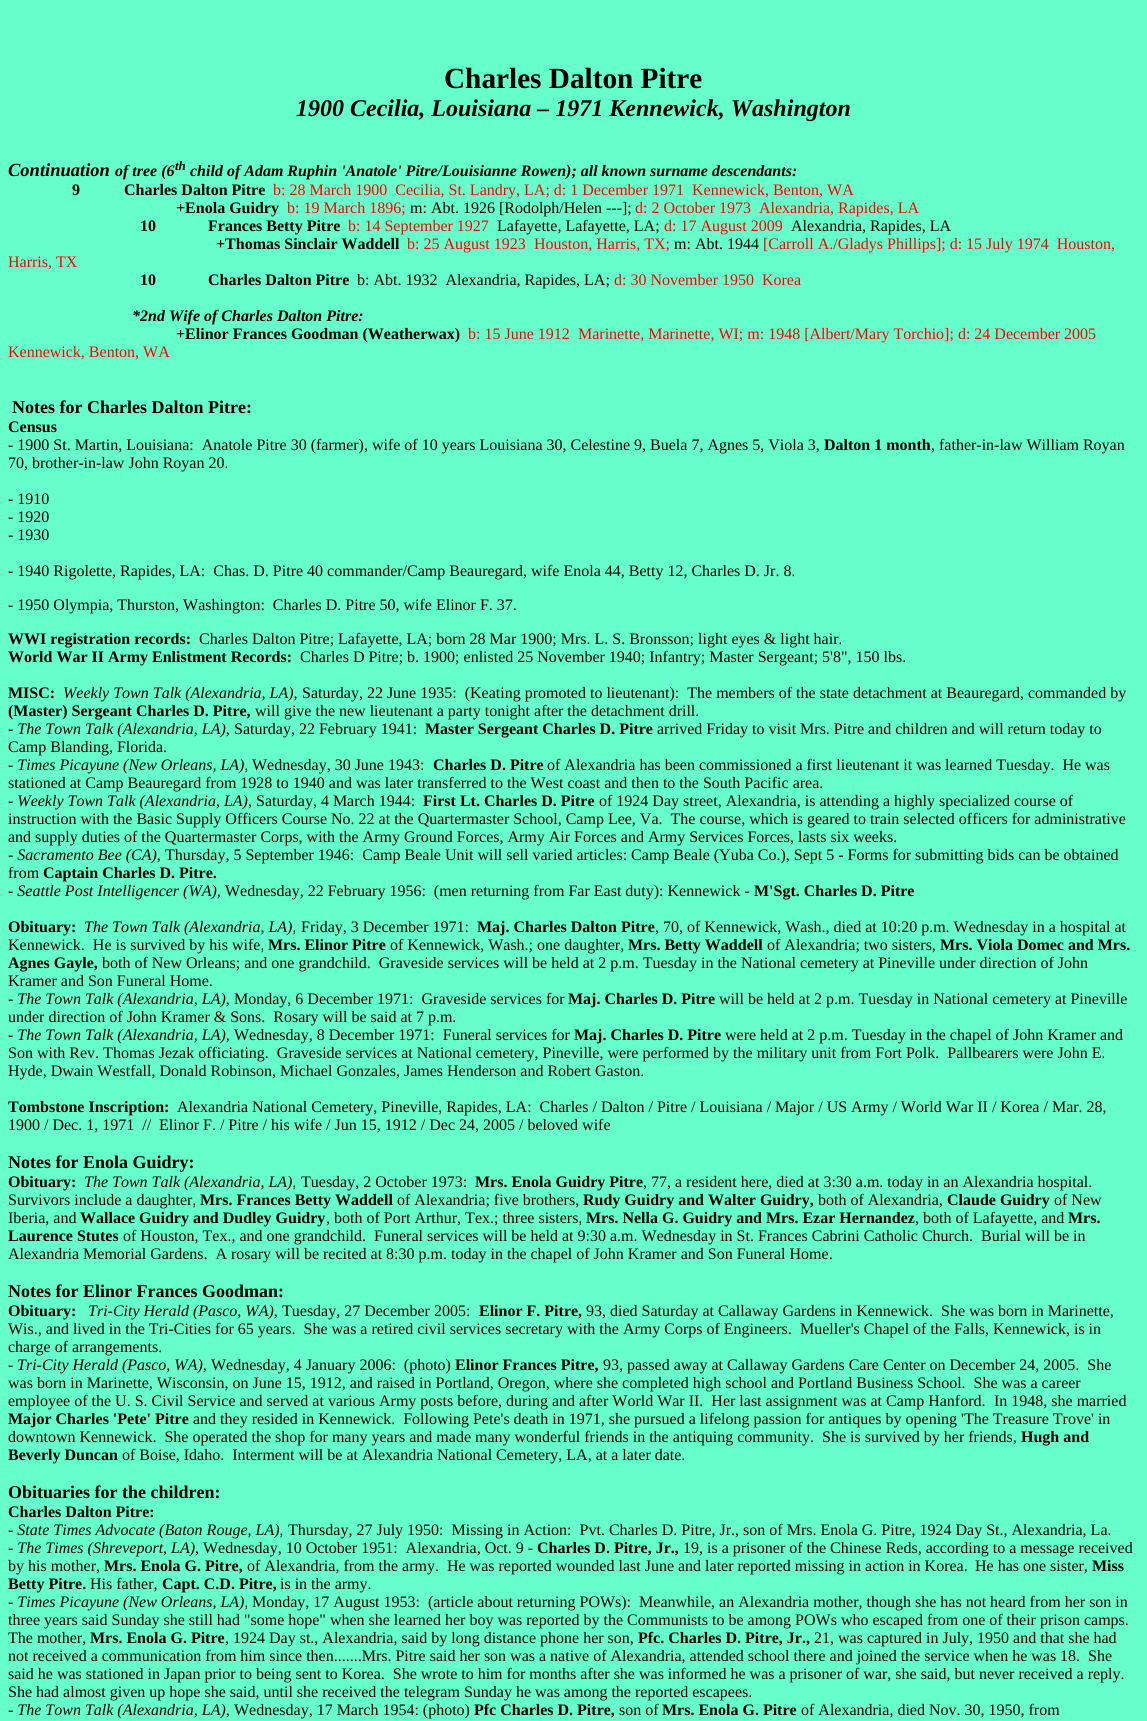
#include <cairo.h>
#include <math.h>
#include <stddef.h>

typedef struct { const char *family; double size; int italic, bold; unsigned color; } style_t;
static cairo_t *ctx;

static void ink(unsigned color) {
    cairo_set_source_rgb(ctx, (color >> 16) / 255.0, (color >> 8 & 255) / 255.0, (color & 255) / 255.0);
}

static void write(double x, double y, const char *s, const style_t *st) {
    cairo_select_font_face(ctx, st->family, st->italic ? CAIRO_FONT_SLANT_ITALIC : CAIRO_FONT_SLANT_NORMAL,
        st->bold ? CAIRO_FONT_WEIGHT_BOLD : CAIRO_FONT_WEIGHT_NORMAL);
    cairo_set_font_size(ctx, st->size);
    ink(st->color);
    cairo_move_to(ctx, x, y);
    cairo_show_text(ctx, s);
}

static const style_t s1 = {"Liberation Serif", 29.25, 0, 1, 0x000000};
static const style_t s2 = {"Liberation Serif", 24, 1, 1, 0x000000};
static const style_t s3 = {"Liberation Serif", 18.5, 1, 1, 0x000000};
static const style_t s4 = {"Liberation Serif", 16, 1, 1, 0x000000};
static const style_t s5 = {"Liberation Serif", 13, 1, 1, 0x000000};
static const style_t s6 = {"Liberation Serif", 16, 0, 1, 0x000000};
static const style_t s7 = {"Liberation Serif", 16, 0, 0, 0xff0000};
static const style_t s8 = {"Liberation Serif", 16, 0, 0, 0x000000};
static const style_t s9 = {"Liberation Serif", 18, 0, 1, 0x000000};
static const style_t s10 = {"Liberation Serif", 16, 1, 0, 0x000000};

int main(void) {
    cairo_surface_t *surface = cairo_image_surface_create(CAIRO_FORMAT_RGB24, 1147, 1721);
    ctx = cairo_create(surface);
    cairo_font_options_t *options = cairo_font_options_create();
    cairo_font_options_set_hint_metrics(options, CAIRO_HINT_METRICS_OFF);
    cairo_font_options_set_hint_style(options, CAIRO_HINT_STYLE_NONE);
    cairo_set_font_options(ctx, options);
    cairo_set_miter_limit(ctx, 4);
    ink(0x66ffcc);
    cairo_paint(ctx);
    write(444, 88, "Charles Dalton Pitre", &s1);
    write(296, 116, "1900 Cecilia, Louisiana – 1971 Kennewick, Washington", &s2);
    write(8, 176, "Continuation", &s3);
    write(115, 176, "of tree (6", &s4);
    write(175, 170, "th", &s5);
    write(190, 176, "child of Adam Ruphin 'Anatole' Pitre/Louisianne Rowen); all known surname descendants:", &s4);
    write(72, 195, "9           Charles Dalton Pitre", &s6);
    write(273, 195, "b: 28 March 1900  Cecilia, St. Landry, LA; d: 1 December 1971  Kennewick, Benton, WA", &s7);
    write(176, 213, "+Enola Guidry", &s6);
    write(287, 213, "b: 19 March 1896;", &s7);
    write(410, 213, "m: Abt. 1926 [Rodolph/Helen ---];", &s8);
    write(635, 213, "d: 2 October 1973", &s7);
    write(759, 213, "Alexandria, Rapides, LA", &s7);
    write(140, 231, "10", &s6);
    write(208, 231, "Frances Betty Pitre", &s6);
    write(348, 231, "b: 14 September 1927", &s7);
    write(497, 231, "Lafayette, Lafayette, LA;", &s8);
    write(664, 231, "d: 17 August 2009", &s7);
    write(791, 231, "Alexandria, Rapides, LA", &s8);
    write(216, 249, "+Thomas Sinclair Waddell", &s6);
    write(407, 249, "b: 25 August 1923", &s7);
    write(534, 249, "Houston, Harris, TX;", &s7);
    write(674, 249, "m: Abt. 1944", &s8);
    write(763, 249, "[Carroll A./Gladys Phillips]; d: 15 July 1974  Houston,", &s7);
    write(8, 267, "Harris, TX", &s7);
    write(140, 285, "10", &s6);
    write(208, 285, "Charles Dalton Pitre", &s6);
    write(357, 285, "b: Abt. 1932  Alexandria, Rapides, LA;", &s8);
    write(614, 285, "d: 30 November 1950  Korea", &s7);
    write(132, 321, "*2nd Wife of Charles Dalton Pitre:", &s4);
    write(176, 339, "+Elinor Frances Goodman (Weatherwax)", &s6);
    write(468, 339, "b: 15 June 1912", &s7);
    write(578, 339, "Marinette, Marinette, WI; m: 1948 [Albert/Mary Torchio]; d: 24 December 2005", &s7);
    write(8, 357, "Kennewick, Benton, WA", &s7);
    write(12, 413, "Notes for Charles Dalton Pitre:", &s9);
    write(8, 432, "Census", &s6);
    write(8, 450, "- 1900 St. Martin, Louisiana:  Anatole Pitre 30 (farmer), wife of 10 years Louisiana 30, Celestine 9, Buela 7, Agnes 5, Viola 3,", &s8);
    write(824, 450, "Dalton 1 month", &s6);
    write(931, 450, ", father-in-law William Royan", &s8);
    write(8, 468, "70, brother-in-law John Royan 20.", &s8);
    write(8, 504, "- 1910", &s8);
    write(8, 522, "- 1920", &s8);
    write(8, 540, "- 1930", &s8);
    write(8, 576, "- 1940 Rigolette, Rapides, LA:  Chas. D. Pitre 40 commander/Camp Beauregard, wife Enola 44, Betty 12, Charles D. Jr. 8.", &s8);
    write(8, 610, "- 1950 Olympia, Thurston, Washington:  Charles D. Pitre 50, wife Elinor F. 37.", &s8);
    write(8, 644, "WWI registration records:", &s6);
    write(199, 644, "Charles Dalton Pitre; Lafayette, LA; born 28 Mar 1900; Mrs. L. S. Bronsson; light eyes & light hair.", &s8);
    write(8, 662, "World War II Army Enlistment Records:", &s6);
    write(300, 662, "Charles D Pitre; b. 1900; enlisted 25 November 1940; Infantry; Master Sergeant; 5'8\", 150 lbs.", &s8);
    write(8, 698, "MISC:", &s6);
    write(63, 698, "Weekly Town Talk (Alexandria, LA),", &s10);
    write(302, 698, "Saturday, 22 June 1935:  (Keating promoted to lieutenant):  The members of the state detachment at Beauregard, commanded by", &s8);
    write(8, 716, "(Master) Sergeant Charles D. Pitre,", &s6);
    write(255, 716, "will give the new lieutenant a party tonight after the detachment drill.", &s8);
    write(8, 734, "- The Town Talk (Alexandria, LA),", &s10);
    write(234, 734, "Saturday, 22 February 1941:", &s8);
    write(425, 734, "Master Sergeant Charles D. Pitre", &s6);
    write(657, 734, "arrived Friday to visit Mrs. Pitre and children and will return today to", &s8);
    write(8, 752, "Camp Blanding, Florida.", &s8);
    write(8, 770, "- Times Picayune (New Orleans, LA),", &s10);
    write(252, 770, "Wednesday, 30 June 1943:", &s8);
    write(433, 770, "Charles D. Pitre", &s6);
    write(547, 770, "of Alexandria has been commissioned a first lieutenant it was learned Tuesday.  He was", &s8);
    write(8, 788, "stationed at Camp Beauregard from 1928 to 1940 and was later transferred to the West coast and then to the South Pacific area.", &s8);
    write(8, 806, "- Weekly Town Talk (Alexandria, LA),", &s10);
    write(256, 806, "Saturday, 4 March 1944:", &s8);
    write(423, 806, "First Lt. Charles D. Pitre", &s6);
    write(599, 806, "of 1924 Day street, Alexandria, is attending a highly specialized course of", &s8);
    write(8, 824, "instruction with the Basic Supply Officers Course No. 22 at the Quartermaster School, Camp Lee, Va.  The course, which is geared to train selected officers for administrative", &s8);
    write(8, 842, "and supply duties of the Quartermaster Corps, with the Army Ground Forces, Army Air Forces and Army Services Forces, lasts six weeks.", &s8);
    write(8, 860, "- Sacramento Bee (CA),", &s10);
    write(165, 860, "Thursday, 5 September 1946:  Camp Beale Unit will sell varied articles: Camp Beale (Yuba Co.), Sept 5 - Forms for submitting bids can be obtained", &s8);
    write(8, 878, "from", &s8);
    write(43, 878, "Captain Charles D. Pitre.", &s6);
    write(8, 896, "- Seattle Post Intelligencer (WA),", &s10);
    write(225, 896, "Wednesday, 22 February 1956:  (men returning from Far East duty): Kennewick -", &s8);
    write(754, 896, "M'Sgt. Charles D. Pitre", &s6);
    write(8, 932, "Obituary:", &s6);
    write(84, 932, "The Town Talk (Alexandria, LA),", &s10);
    write(301, 932, "Friday, 3 December 1971:", &s8);
    write(477, 932, "Maj. Charles Dalton Pitre", &s6);
    write(655, 932, ", 70, of Kennewick, Wash., died at 10:20 p.m. Wednesday in a hospital at", &s8);
    write(8, 950, "Kennewick.  He is survived by his wife,", &s8);
    write(268, 950, "Mrs. Elinor Pitre", &s6);
    write(390, 950, "of Kennewick, Wash.; one daughter,", &s8);
    write(628, 950, "Mrs. Betty Waddell", &s6);
    write(767, 950, "of Alexandria; two sisters,", &s8);
    write(940, 950, "Mrs. Viola Domec and Mrs.", &s6);
    write(8, 968, "Agnes Gayle,", &s6);
    write(102, 968, "both of New Orleans; and one grandchild.  Graveside services will be held at 2 p.m. Tuesday in the National cemetery at Pineville under direction of John", &s8);
    write(8, 986, "Kramer and Son Funeral Home.", &s8);
    write(8, 1004, "- The Town Talk (Alexandria, LA),", &s10);
    write(234, 1004, "Monday, 6 December 1971:  Graveside services for", &s8);
    write(568, 1004, "Maj. Charles D. Pitre", &s6);
    write(719, 1004, "will be held at 2 p.m. Tuesday in National cemetery at Pineville", &s8);
    write(8, 1022, "under direction of John Kramer & Sons.  Rosary will be said at 7 p.m.", &s8);
    write(8, 1040, "- The Town Talk (Alexandria, LA),", &s10);
    write(234, 1040, "Wednesday, 8 December 1971:  Funeral services for", &s8);
    write(574, 1040, "Maj. Charles D. Pitre", &s6);
    write(725, 1040, "were held at 2 p.m. Tuesday in the chapel of John Kramer and", &s8);
    write(8, 1058, "Son with Rev. Thomas Jezak officiating.  Graveside services at National cemetery, Pineville, were performed by the military unit from Fort Polk.  Pallbearers were John E.", &s8);
    write(8, 1076, "Hyde, Dwain Westfall, Donald Robinson, Michael Gonzales, James Henderson and Robert Gaston.", &s8);
    write(8, 1112, "Tombstone Inscription:", &s6);
    write(177, 1112, "Alexandria National Cemetery, Pineville, Rapides, LA:  Charles / Dalton / Pitre / Louisiana / Major / US Army / World War II / Korea / Mar. 28,", &s8);
    write(8, 1130, "1900 / Dec. 1, 1971  //", &s8);
    write(159, 1130, "Elinor F. / Pitre / his wife / Jun 15, 1912 / Dec 24, 2005 / beloved wife", &s8);
    write(8, 1168, "Notes for Enola Guidry:", &s9);
    write(8, 1187, "Obituary:", &s6);
    write(84, 1187, "The Town Talk (Alexandria, LA),", &s10);
    write(301, 1187, "Tuesday, 2 October 1973:", &s8);
    write(475, 1187, "Mrs. Enola Guidry Pitre", &s6);
    write(643, 1187, ", 77, a resident here, died at 3:30 a.m. today in an Alexandria hospital.", &s8);
    write(8, 1205, "Survivors include a daughter,", &s8);
    write(200, 1205, "Mrs. Frances Betty Waddell", &s6);
    write(397, 1205, "of Alexandria; five brothers,", &s8);
    write(583, 1205, "Rudy Guidry and Walter Guidry,", &s6);
    write(818, 1205, "both of Alexandria,", &s8);
    write(947, 1205, "Claude Guidry", &s6);
    write(1054, 1205, "of New", &s8);
    write(8, 1223, "Iberia, and", &s8);
    write(80, 1223, "Wallace Guidry and Dudley Guidry", &s6);
    write(326, 1223, ", both of Port Arthur, Tex.; three sisters,", &s8);
    write(586, 1223, "Mrs. Nella G. Guidry and Mrs. Ezar Hernandez", &s6);
    write(915, 1223, ", both of Lafayette, and", &s8);
    write(1068, 1223, "Mrs.", &s6);
    write(8, 1241, "Laurence Stutes", &s6);
    write(123, 1241, "of Houston, Tex., and one grandchild.  Funeral services will be held at 9:30 a.m. Wednesday in St. Frances Cabrini Catholic Church.  Burial will be in", &s8);
    write(8, 1259, "Alexandria Memorial Gardens.  A rosary will be recited at 8:30 p.m. today in the chapel of John Kramer and Son Funeral Home.", &s8);
    write(8, 1297, "Notes for Elinor Frances Goodman:", &s9);
    write(8, 1316, "Obituary:", &s6);
    write(88, 1316, "Tri-City Herald (Pasco, WA),", &s10);
    write(282, 1316, "Tuesday, 27 December 2005:", &s8);
    write(479, 1316, "Elinor F. Pitre,", &s6);
    write(586, 1316, "93, died Saturday at Callaway Gardens in Kennewick.  She was born in Marinette,", &s8);
    write(8, 1334, "Wis., and lived in the Tri-Cities for 65 years.  She was a retired civil services secretary with the Army Corps of Engineers.", &s8);
    write(800, 1334, "Mueller's Chapel of the Falls, Kennewick, is in", &s8);
    write(8, 1352, "charge of arrangements.", &s8);
    write(8, 1370, "-", &s8);
    write(17, 1370, "Tri-City Herald (Pasco, WA),", &s10);
    write(211, 1370, "Wednesday, 4 January 2006:  (photo)", &s8);
    write(455, 1370, "Elinor Frances Pitre,", &s6);
    write(603, 1370, "93, passed away at Callaway Gardens Care Center on December 24, 2005.  She", &s8);
    write(8, 1388, "was born in Marinette, Wisconsin, on June 15, 1912, and raised in Portland, Oregon, where she completed high school and Portland Business School.  She was a career", &s8);
    write(8, 1406, "employee of the U. S. Civil Service and served at various Army posts before, during and after World War II.  Her last assignment was at Camp Hanford.", &s8);
    write(994, 1406, "In 1948, she married", &s8);
    write(8, 1424, "Major Charles 'Pete' Pitre", &s6);
    write(193, 1424, "and they resided in Kennewick.  Following Pete's death in 1971, she pursued a lifelong passion for antiques by opening 'The Treasure Trove' in", &s8);
    write(8, 1442, "downtown Kennewick.  She operated the shop for many years and made many wonderful friends in the antiquing community.  She is survived by her friends,", &s8);
    write(1021, 1442, "Hugh and", &s6);
    write(8, 1460, "Beverly Duncan", &s6);
    write(122, 1460, "of Boise, Idaho.  Interment will be at Alexandria National Cemetery, LA, at a later date.", &s8);
    write(8, 1498, "Obituaries for the children:", &s9);
    write(8, 1517, "Charles Dalton Pitre:", &s6);
    write(8, 1535, "- State Times Advocate (Baton Rouge, LA),", &s10);
    write(288, 1535, "Thursday, 27 July 1950:  Missing in Action:  Pvt. Charles D. Pitre, Jr., son of Mrs. Enola G. Pitre, 1924 Day St., Alexandria, La.", &s8);
    write(8, 1553, "- The Times (Shreveport, LA),", &s10);
    write(203, 1553, "Wednesday, 10 October 1951:  Alexandria, Oct. 9 -", &s8);
    write(537, 1553, "Charles D. Pitre, Jr.,", &s6);
    write(683, 1553, "19, is a prisoner of the Chinese Reds, according to a message received", &s8);
    write(8, 1571, "by his mother,", &s8);
    write(104, 1571, "Mrs. Enola G. Pitre,", &s6);
    write(247, 1571, "of Alexandria, from the army.  He was reported wounded last June and later reported missing in action in Korea.", &s8);
    write(975, 1571, "He has one sister,", &s8);
    write(1092, 1571, "Miss", &s6);
    write(8, 1589, "Betty Pitre.", &s6);
    write(90, 1589, "His father,", &s8);
    write(162, 1589, "Capt. C.D. Pitre,", &s6);
    write(280, 1589, "is in the army.", &s8);
    write(8, 1607, "- Times Picayune (New Orleans, LA),", &s10);
    write(252, 1607, "Monday, 17 August 1953:  (article about returning POWs):  Meanwhile, an Alexandria mother, though she has not heard from her son in", &s8);
    write(8, 1625, "three years said Sunday she still had \"some hope\" when she learned her boy was reported by the Communists to be among POWs who escaped from one of their prison camps.", &s8);
    write(8, 1643, "The mother,", &s8);
    write(90, 1643, "Mrs. Enola G. Pitre", &s6);
    write(225, 1643, ", 1924 Day st., Alexandria, said by long distance phone her son,", &s8);
    write(638, 1643, "Pfc. Charles D. Pitre, Jr.,", &s6);
    write(814, 1643, "21, was captured in July, 1950 and that she had", &s8);
    write(8, 1661, "not received a communication from him since then.......Mrs. Pitre said her son was a native of Alexandria, attended school there and joined the service when he was 18.  She", &s8);
    write(8, 1679, "said he was stationed in Japan prior to being sent to Korea.  She wrote to him for months after she was informed he was a prisoner of war, she said, but never received a reply.", &s8);
    write(8, 1697, "She had almost given up hope she said, until she received the telegram Sunday he was among the reported escapees.", &s8);
    write(8, 1715, "- The Town Talk (Alexandria, LA),", &s10);
    write(234, 1715, "Wednesday, 17 March 1954: (photo)", &s8);
    write(474, 1715, "Pfc Charles D. Pitre,", &s6);
    write(619, 1715, "son of", &s8);
    write(662, 1715, "Mrs. Enola G. Pitre", &s6);
    write(801, 1715, "of Alexandria, died Nov. 30, 1950, from", &s8);
    cairo_surface_write_to_png(surface, "screenshot.png");
    cairo_font_options_destroy(options);
    cairo_destroy(ctx);
    cairo_surface_destroy(surface);
    return 0;
}
